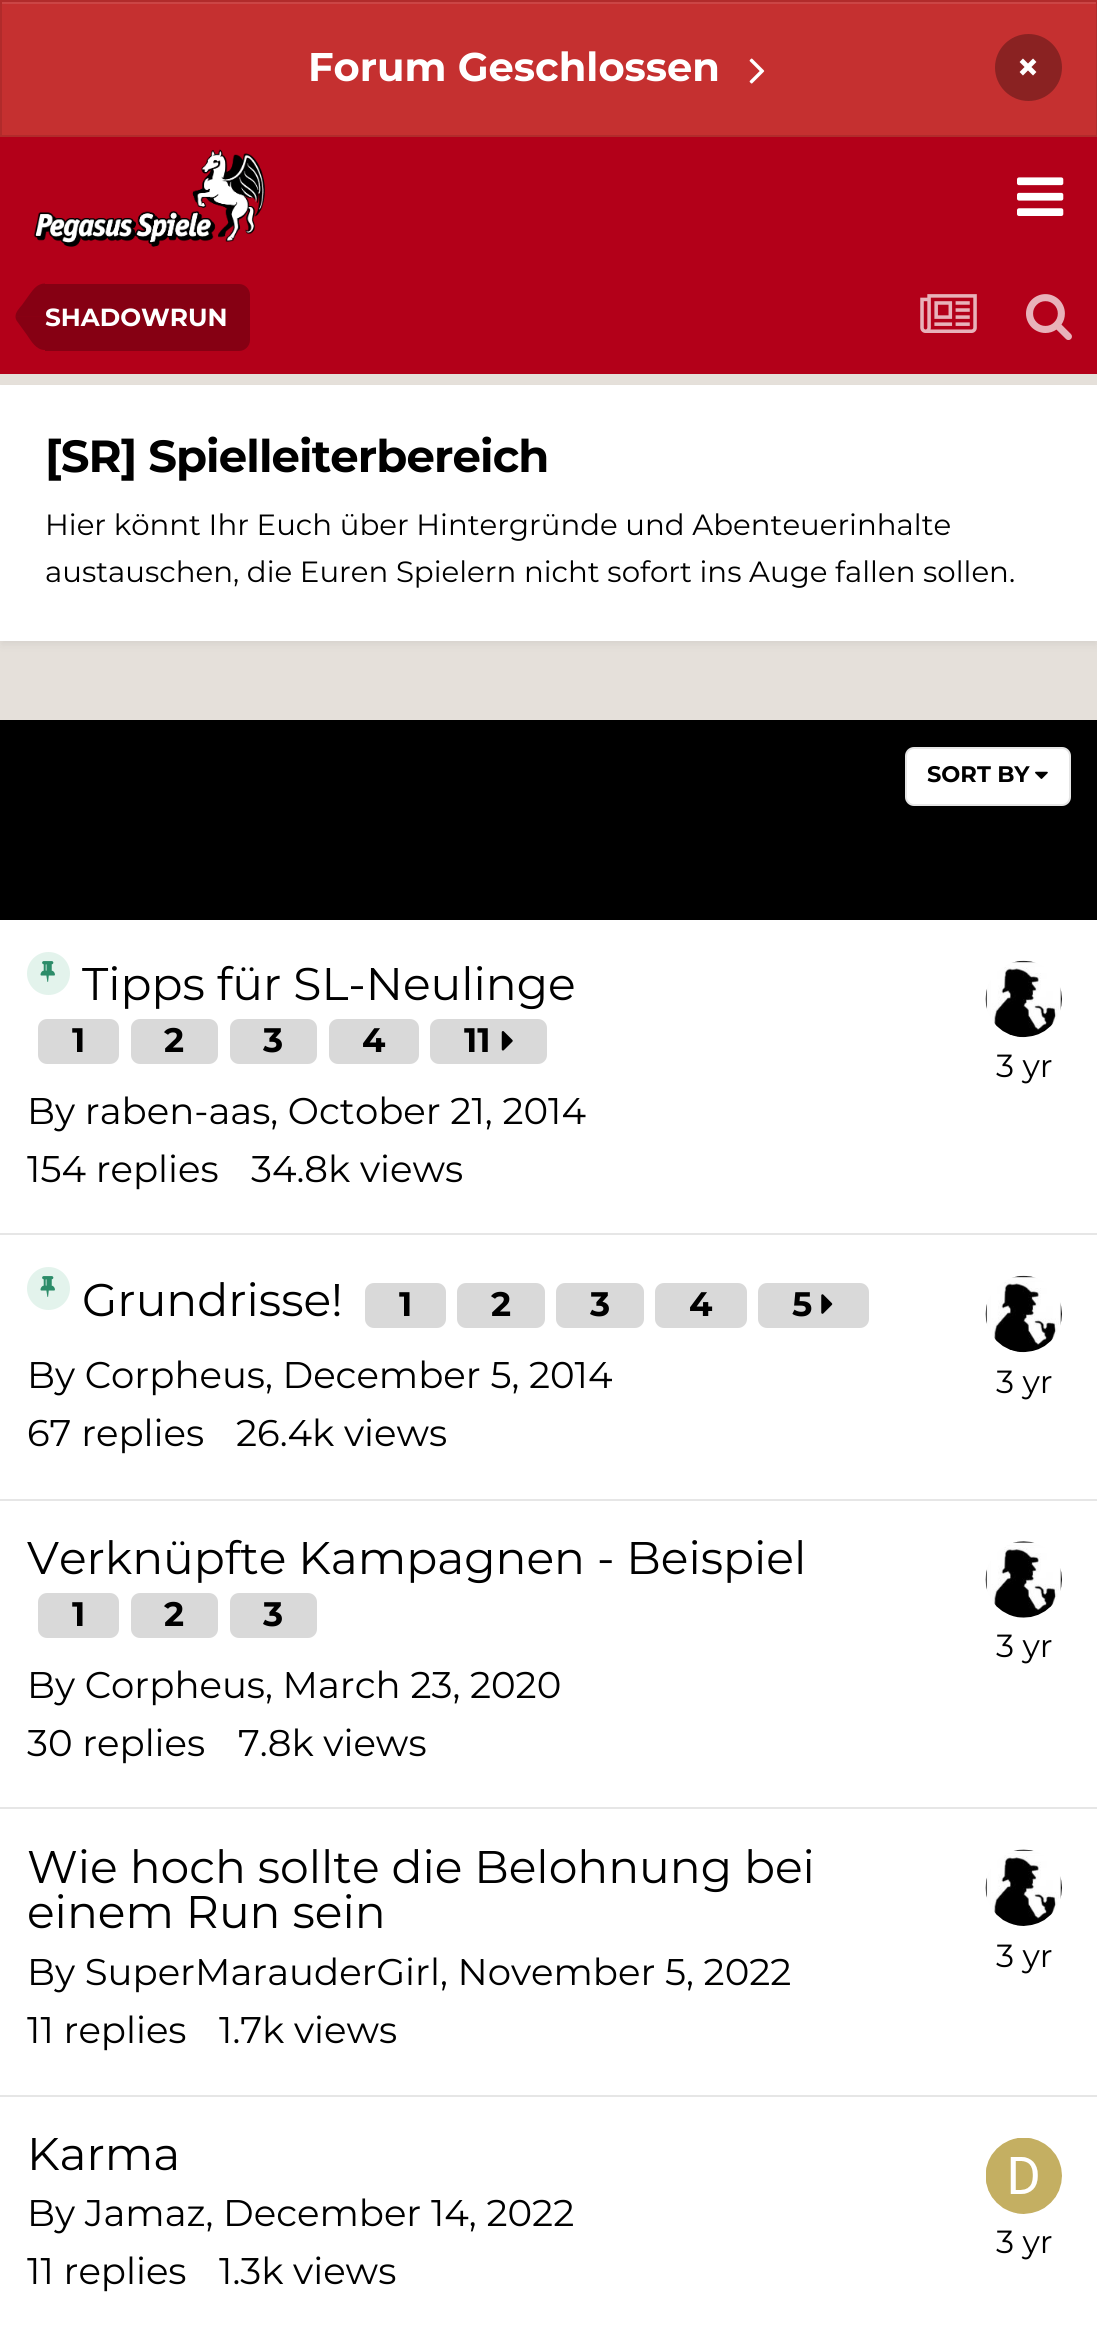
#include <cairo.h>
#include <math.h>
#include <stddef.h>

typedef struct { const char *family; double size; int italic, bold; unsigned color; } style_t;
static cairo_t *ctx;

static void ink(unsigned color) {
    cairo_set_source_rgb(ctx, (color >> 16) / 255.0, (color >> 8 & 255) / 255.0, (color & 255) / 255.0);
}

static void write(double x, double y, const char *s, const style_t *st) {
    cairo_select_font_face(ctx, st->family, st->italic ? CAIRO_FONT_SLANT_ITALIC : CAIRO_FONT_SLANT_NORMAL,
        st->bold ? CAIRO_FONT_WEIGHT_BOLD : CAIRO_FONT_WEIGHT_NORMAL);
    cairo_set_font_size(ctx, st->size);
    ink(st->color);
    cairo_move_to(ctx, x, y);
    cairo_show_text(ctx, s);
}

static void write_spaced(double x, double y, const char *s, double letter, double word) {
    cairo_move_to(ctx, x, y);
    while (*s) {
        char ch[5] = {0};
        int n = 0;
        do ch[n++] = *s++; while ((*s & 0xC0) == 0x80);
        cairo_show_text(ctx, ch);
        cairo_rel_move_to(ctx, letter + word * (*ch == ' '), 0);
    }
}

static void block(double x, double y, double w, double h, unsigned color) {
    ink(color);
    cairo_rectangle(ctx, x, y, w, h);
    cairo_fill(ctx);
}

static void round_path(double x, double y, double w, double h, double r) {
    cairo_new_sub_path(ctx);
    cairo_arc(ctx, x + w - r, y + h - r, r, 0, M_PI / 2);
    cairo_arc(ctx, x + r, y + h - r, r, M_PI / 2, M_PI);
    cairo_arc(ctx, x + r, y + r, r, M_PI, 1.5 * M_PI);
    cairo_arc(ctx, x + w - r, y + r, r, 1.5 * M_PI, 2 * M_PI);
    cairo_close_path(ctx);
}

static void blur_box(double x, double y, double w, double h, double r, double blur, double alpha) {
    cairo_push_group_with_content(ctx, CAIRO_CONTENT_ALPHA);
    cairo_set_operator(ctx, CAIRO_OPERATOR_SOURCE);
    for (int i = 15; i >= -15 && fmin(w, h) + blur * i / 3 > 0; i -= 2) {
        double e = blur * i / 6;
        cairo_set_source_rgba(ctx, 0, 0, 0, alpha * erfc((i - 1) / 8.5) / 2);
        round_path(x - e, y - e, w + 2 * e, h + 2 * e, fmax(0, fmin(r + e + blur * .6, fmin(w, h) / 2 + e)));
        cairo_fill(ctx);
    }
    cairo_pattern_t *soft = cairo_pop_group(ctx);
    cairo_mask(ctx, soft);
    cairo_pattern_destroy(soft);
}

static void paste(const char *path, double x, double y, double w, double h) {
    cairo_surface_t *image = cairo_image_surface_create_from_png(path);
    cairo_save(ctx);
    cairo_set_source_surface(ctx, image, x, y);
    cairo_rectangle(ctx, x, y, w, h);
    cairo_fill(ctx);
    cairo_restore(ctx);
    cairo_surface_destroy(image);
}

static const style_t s1 = {"Montserrat", 40, 0, 1, 0xffffff};
static const style_t s2 = {"Montserrat", 24.75, 0, 1, 0xffffff};
static const style_t s3 = {"Montserrat", 29.25, 0, 0, 0x000000};
static const style_t s4 = {"Montserrat", 22.5, 0, 1, 0x000000};
static const style_t s5 = {"Montserrat", 45.7, 0, 0, 0x000000};
static const style_t s6 = {"Montserrat", 34, 0, 1, 0x000000};
static const style_t s7 = {"Montserrat", 37.1, 0, 0, 0x000000};
static const style_t s8 = {"Montserrat", 32, 0, 0, 0x000000};

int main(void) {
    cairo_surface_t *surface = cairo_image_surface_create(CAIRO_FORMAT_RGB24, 1097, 2331);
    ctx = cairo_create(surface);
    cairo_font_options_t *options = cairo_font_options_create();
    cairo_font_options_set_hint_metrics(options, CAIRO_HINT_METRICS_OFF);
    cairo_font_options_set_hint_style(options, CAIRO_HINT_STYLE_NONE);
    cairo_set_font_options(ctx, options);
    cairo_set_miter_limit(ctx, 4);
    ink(0xe5e0da);
    cairo_paint(ctx);
    block(2, 4, 1094, 131, 0xc53030);
    block(2, 2, 1094, 2, 0xcb4545);
    cairo_rectangle(ctx, 1, 1, 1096, 135);
    ink(0xb12b2b);
    cairo_stroke(ctx);
    write(308, 81, "Forum Geschlossen", &s1);
    paste("pic1.png", 749, 58, 16, 26);
    ink(0x8a2222);
    cairo_arc(ctx, 1028.5, 67.5, 33.5, 0, 2 * M_PI);
    cairo_fill(ctx);
    write(1016, 81, "×", &s1);
    block(0, 137, 1097, 237, 0xb30019);
    paste("pic2.png", 33, 149, 232, 98);
    paste("pic3.png", 1017, 177, 47, 39);
    ink(0x860013);
    cairo_new_path(ctx);
    cairo_move_to(ctx, 45, 284);
    cairo_line_to(ctx, 239, 284);
    cairo_curve_to(ctx, 245, 284, 250, 289, 250, 295);
    cairo_line_to(ctx, 250, 340);
    cairo_curve_to(ctx, 250, 346, 245, 351, 239, 351);
    cairo_line_to(ctx, 45, 351);
    cairo_close_path(ctx);
    cairo_fill(ctx);
    cairo_new_path(ctx);
    cairo_move_to(ctx, 16.5, 320.5);
    cairo_curve_to(ctx, 16, 319.5, 15.5, 318, 15.5, 316.5);
    cairo_line_to(ctx, 45, 316.5);
    cairo_line_to(ctx, 45, 350);
    cairo_curve_to(ctx, 36, 350, 31.5, 341.5, 27, 335);
    cairo_close_path(ctx);
    cairo_fill(ctx);
    cairo_set_source_rgba(ctx, 0, 0, 0, 0.25);
    cairo_new_path(ctx);
    cairo_move_to(ctx, 45, 283.5);
    cairo_line_to(ctx, 45, 316.5);
    cairo_line_to(ctx, 15.5, 316.5);
    cairo_curve_to(ctx, 15.5, 312, 19.5, 308, 22, 305);
    cairo_line_to(ctx, 29.5, 294.5);
    cairo_curve_to(ctx, 33.5, 289, 37.5, 283.5, 45, 283.5);
    cairo_close_path(ctx);
    cairo_fill(ctx);
    write(45, 326, "SHADOWRUN", &s2);
    paste("pic4.png", 920, 294, 57, 39);
    paste("pic5.png", 1026, 294, 46, 46);
    ink(0x3a4649);
    blur_box(2, 392, 1094, 252, 0, 4.5, 0.1);
    block(0, 385, 1097, 256, 0xffffff);
    cairo_set_font_size(ctx, 45);
    ink(0x000000);
    write_spaced(45, 472, "[SR] Spielleiterbereich", -0.9, 0);
    write(45, 535, "Hier könnt Ihr Euch über Hintergründe und Abenteuerinhalte", &s3);
    write(45, 582, "austauschen, die Euren Spielern nicht sofort ins Auge fallen sollen.", &s3);
    block(0, 920, 1097, 1411, 0xffffff);
    block(0, 720, 1097, 200, 0x000000);
    ink(0xffffff);
    round_path(905, 747, 166, 59, 9);
    cairo_fill(ctx);
    paste("pic6.png", 1035, 771, 13, 8);
    round_path(906, 748, 164, 57, 8);
    cairo_set_source_rgba(ctx, 0, 0, 0, 0.1);
    cairo_stroke(ctx);
    write(927, 782, "SORT BY", &s4);
    block(0, 1233, 1097, 2, 0xe6e6e6);
    ink(0xe3f3ec);
    cairo_new_path(ctx);
    cairo_arc(ctx, 48.5, 973.5, 21.5, 0, 2 * M_PI);
    cairo_fill(ctx);
    paste("pic7.png", 40, 961, 15, 21);
    write(82, 1000, "Tipps für SL-Neulinge", &s5);
    write(72, 1052, "1", &s6);
    cairo_set_source_rgba(ctx, 0, 0, 0, 0.15);
    round_path(38, 1019, 81, 45, 9);
    cairo_fill(ctx);
    write(164, 1052, "2", &s6);
    cairo_set_source_rgba(ctx, 0, 0, 0, 0.15);
    round_path(131, 1019, 87, 45, 9);
    cairo_fill(ctx);
    write(263, 1052, "3", &s6);
    cairo_set_source_rgba(ctx, 0, 0, 0, 0.15);
    round_path(230, 1019, 87, 45, 9);
    cairo_fill(ctx);
    write(362, 1052, "4", &s6);
    cairo_set_source_rgba(ctx, 0, 0, 0, 0.15);
    round_path(329, 1019, 90, 45, 9);
    cairo_fill(ctx);
    write(464, 1052, "11", &s6);
    paste("pic8.png", 501, 1031, 12, 20);
    cairo_set_source_rgba(ctx, 0, 0, 0, 0.15);
    round_path(430, 1019, 117, 45, 9);
    cairo_fill(ctx);
    write(27, 1124, "By raben-aas, October 21, 2014", &s7);
    paste("pic9.png", 985, 960, 77, 78);
    write(996, 1077, "3 yr", &s8);
    write(27, 1182, "154 replies", &s7);
    write(251, 1182, "34.8k views", &s7);
    block(0, 1499, 1097, 2, 0xe6e6e6);
    ink(0xe3f3ec);
    cairo_new_path(ctx);
    cairo_arc(ctx, 48.5, 1288.5, 21.5, 0, 2 * M_PI);
    cairo_fill(ctx);
    paste("pic7.png", 40, 1276, 15, 21);
    write(82, 1316, "Grundrisse!", &s5);
    write(399, 1316, "1", &s6);
    cairo_set_source_rgba(ctx, 0, 0, 0, 0.15);
    round_path(365, 1283, 81, 45, 9);
    cairo_fill(ctx);
    write(491, 1316, "2", &s6);
    cairo_set_source_rgba(ctx, 0, 0, 0, 0.15);
    round_path(457, 1283, 88, 45, 9);
    cairo_fill(ctx);
    write(590, 1316, "3", &s6);
    cairo_set_source_rgba(ctx, 0, 0, 0, 0.15);
    round_path(556, 1283, 88, 45, 9);
    cairo_fill(ctx);
    write(689, 1316, "4", &s6);
    cairo_set_source_rgba(ctx, 0, 0, 0, 0.15);
    round_path(655, 1283, 92, 45, 9);
    cairo_fill(ctx);
    write(792, 1316, "5", &s6);
    paste("pic10.png", 821, 1294, 12, 20);
    cairo_set_source_rgba(ctx, 0, 0, 0, 0.15);
    round_path(758, 1283, 111, 45, 9);
    cairo_fill(ctx);
    write(27, 1388, "By Corpheus, December 5, 2014", &s7);
    paste("pic11.png", 985, 1275, 77, 78);
    write(996, 1393, "3 yr", &s8);
    write(27, 1446, "67 replies", &s7);
    write(236, 1446, "26.4k views", &s7);
    block(0, 1807, 1097, 2, 0xe6e6e6);
    write(27, 1574, "Verknüpfte Kampagnen - Beispiel", &s5);
    write(72, 1626, "1", &s6);
    cairo_set_source_rgba(ctx, 0, 0, 0, 0.15);
    round_path(38, 1593, 81, 45, 9);
    cairo_fill(ctx);
    write(164, 1626, "2", &s6);
    cairo_set_source_rgba(ctx, 0, 0, 0, 0.15);
    round_path(131, 1593, 87, 45, 9);
    cairo_fill(ctx);
    write(263, 1626, "3", &s6);
    cairo_set_source_rgba(ctx, 0, 0, 0, 0.15);
    round_path(230, 1593, 87, 45, 9);
    cairo_fill(ctx);
    write(27, 1698, "By Corpheus, March 23, 2020", &s7);
    paste("pic12.png", 985, 1541, 77, 77);
    write(996, 1657, "3 yr", &s8);
    write(27, 1756, "30 replies", &s7);
    write(238, 1756, "7.8k views", &s7);
    block(0, 2095, 1097, 2, 0xe6e6e6);
    write(27, 1883, "Wie hoch sollte die Belohnung bei", &s5);
    write(27, 1928, "einem Run sein", &s5);
    write(27, 1985, "By SuperMarauderGirl, November 5, 2022", &s7);
    paste("pic13.png", 985, 1849, 77, 77);
    write(996, 1967, "3 yr", &s8);
    write(27, 2043, "11 replies", &s7);
    write(219, 2043, "1.7k views", &s7);
    write(27, 2170, "Karma", &s5);
    write(27, 2226, "By Jamaz, December 14, 2022", &s7);
    paste("pic14.png", 986, 2138, 76, 76);
    write(996, 2253, "3 yr", &s8);
    write(27, 2284, "11 replies", &s7);
    write(219, 2284, "1.3k views", &s7);
    cairo_surface_write_to_png(surface, "screenshot.png");
    cairo_font_options_destroy(options);
    cairo_destroy(ctx);
    cairo_surface_destroy(surface);
    return 0;
}
